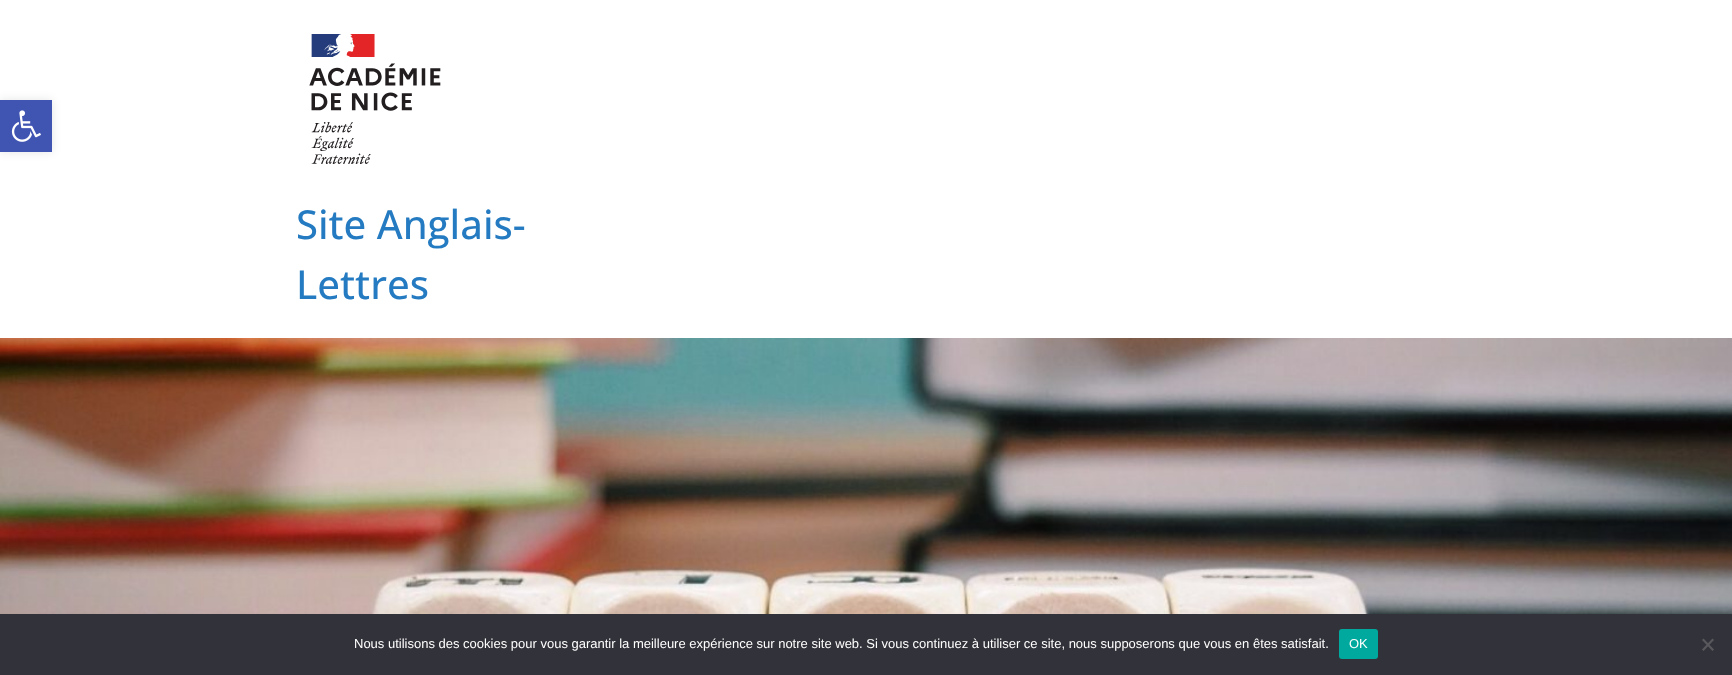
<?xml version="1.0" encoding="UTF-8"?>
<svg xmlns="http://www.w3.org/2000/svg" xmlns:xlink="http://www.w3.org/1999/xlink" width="1732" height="675">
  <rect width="100%" height="100%" fill="#ffffff" />
  <rect y="100" width="52" height="52" fill="#000000" fill-opacity="0.1" filter="blur(5px)" />
  <rect y="100" width="52" height="52" fill="#4054b2" />
  <image x="11" y="110" width="30" height="32" xlink:href="image1.png" />
  <image x="309" y="34" width="132" height="130" xlink:href="image2.png" />
  <image x="0" y="338" width="1732" height="276" xlink:href="image3.png" />
  <rect y="614" width="1732" height="61" fill="#32323a" />
  <rect x="1339" y="629" width="39" height="30" rx="3" fill="#00a99d" />
  <path d="M 1712.5 638.5 l 1.5 1.5 l -10.5 11 l -1.5 -1.5 z" fill="#59595d" />
  <path d="M 1702 640 l 1.5 -1.5 l 10.5 11 l -1.5 1.5 z" fill="#59595d" />
  <text x="296" y="239" style="font-family: Open Sans; font-size: 40px; font-weight: 500; fill: #257bc1">Site Anglais-</text>
  <text x="296" y="299" style="font-family: Open Sans; font-size: 40px; font-weight: 500; fill: #257bc1">Lettres</text>
  <text x="354" y="648" style="font-family: Liberation Sans; font-size: 13px; fill: #ffffff">Nous utilisons des cookies pour vous garantir la meilleure expérience sur notre site web. Si vous continuez à utiliser ce site, nous supposerons que vous en êtes satisfait.</text>
  <text x="1349" y="648" style="font-family: Liberation Sans; font-size: 13px; fill: #ffffff">OK</text>
</svg>
